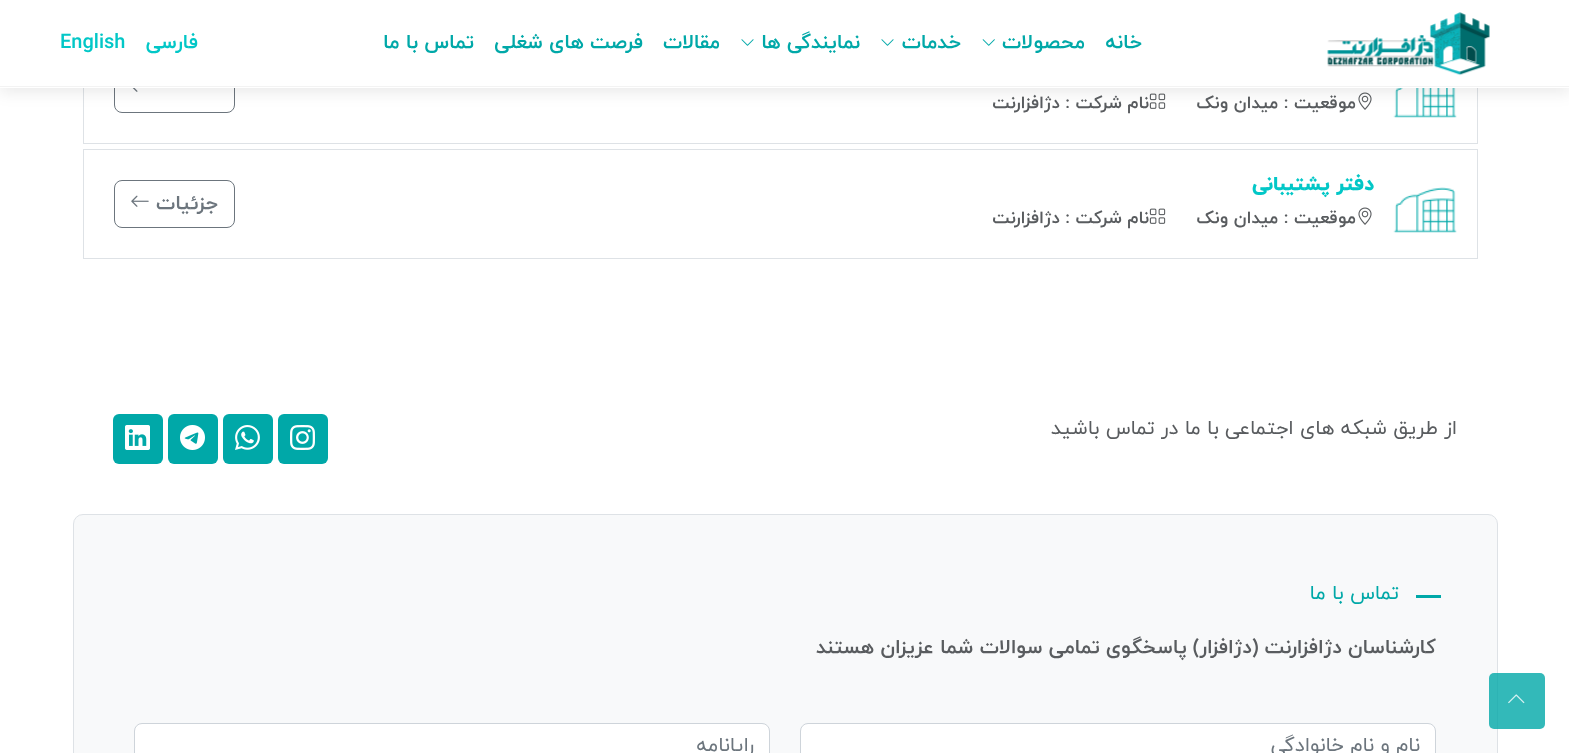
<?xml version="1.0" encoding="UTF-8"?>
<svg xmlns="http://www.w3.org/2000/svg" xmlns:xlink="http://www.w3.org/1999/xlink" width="1569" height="753">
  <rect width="100%" height="100%" fill="#ffffff" />
  <rect x="83.5" y="34.5" width="1394" height="109" fill="none" stroke="#dee2e6" />
  <image x="1393" y="88" width="64" height="30" xlink:href="image5.png" />
  <image x="1358" y="92" width="14" height="18" xlink:href="image6.png" />
  <image x="1149" y="93" width="17" height="16" xlink:href="image7.png" />
  <rect x="114.5" y="65.5" width="120" height="47" rx="7.5" fill="none" stroke="#6c757d" />
  <image x="132" y="88" width="6" height="4" xlink:href="image8.png" />
  <rect y="5" width="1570" height="88" fill="#000000" fill-opacity="0.08" filter="blur(7.5px)" />
  <rect width="1569" height="88" fill="#ffffff" />
  <rect y="86" width="1569" height="1" fill="#f3f3f3" />
  <image x="1327" y="12" width="163" height="64" xlink:href="image1.png" />
  <image x="982" y="39" width="13" height="7" xlink:href="image2.png" />
  <image x="881" y="39" width="13" height="7" xlink:href="image3.png" />
  <image x="741" y="39" width="13" height="7" xlink:href="image3.png" />
  <rect x="73.5" y="514.5" width="1424" height="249" rx="9.5" fill="#f8f9fa" stroke="#dee2e6" />
  <rect x="1489" y="673" width="56" height="56" rx="5" fill="#00a8a8" fill-opacity="0.8" />
  <image x="1508" y="694" width="17" height="10" xlink:href="image4.png" />
  <rect x="83.5" y="149.5" width="1394" height="109" fill="none" stroke="#dee2e6" />
  <image x="1393" y="187" width="64" height="46" xlink:href="image9.png" />
  <image x="1358" y="207" width="14" height="18" xlink:href="image6.png" />
  <image x="1149" y="208" width="17" height="16" xlink:href="image7.png" />
  <rect x="114.5" y="180.5" width="120" height="47" rx="7.5" fill="none" stroke="#6c757d" />
  <image x="131" y="195" width="18" height="12" xlink:href="image10.png" />
  <rect x="278" y="414" width="50" height="50" rx="6" fill="#00a8a8" />
  <image x="290" y="425" width="25" height="25" xlink:href="image11.png" />
  <rect x="223" y="414" width="50" height="50" rx="6" fill="#00a8a8" />
  <image x="235" y="425" width="25" height="25" xlink:href="image12.png" />
  <rect x="168" y="414" width="50" height="50" rx="6" fill="#00a8a8" />
  <image x="180" y="425" width="25" height="25" xlink:href="image13.png" />
  <rect x="113" y="414" width="50" height="50" rx="6" fill="#00a8a8" />
  <image x="125" y="425" width="25" height="25" xlink:href="image14.png" />
  <rect x="1416" y="595" width="25" height="3" fill="#00a8a8" />
  <rect x="801" y="724" width="634" height="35" rx="6" fill="#ffffff" />
  <rect x="800.5" y="723.5" width="635" height="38" rx="7.5" fill="none" stroke="#ced4da" />
  <rect x="135" y="724" width="634" height="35" rx="6" fill="#ffffff" />
  <rect x="134.5" y="723.5" width="635" height="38" rx="7.5" fill="none" stroke="#ced4da" />
  <text x="1142" y="48" style="font-family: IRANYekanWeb; font-size: 20px; font-weight: bold; direction: rtl; fill: #00a8a8">خانه</text>
  <text x="1085" y="48" style="font-family: IRANYekanWeb; font-size: 20px; font-weight: bold; direction: rtl; fill: #00a8a8">محصولات</text>
  <text x="961" y="48" style="font-family: IRANYekanWeb; font-size: 20px; font-weight: bold; direction: rtl; fill: #00a8a8">خدمات</text>
  <text x="860" y="48" style="font-family: IRANYekanWeb; font-size: 20px; font-weight: bold; direction: rtl; fill: #00a8a8">نمایندگی ها</text>
  <text x="720" y="48" style="font-family: IRANYekanWeb; font-size: 20px; font-weight: bold; direction: rtl; fill: #00a8a8">مقالات</text>
  <text x="643" y="48" style="font-family: IRANYekanWeb; font-size: 20px; font-weight: bold; direction: rtl; fill: #00a8a8">فرصت های شغلی</text>
  <text x="474" y="48" style="font-family: IRANYekanWeb; font-size: 20px; font-weight: bold; direction: rtl; fill: #00a8a8">تماس با ما</text>
  <text x="198" y="48" style="font-family: IRANYekanWeb; font-size: 20px; font-weight: bold; direction: rtl; fill: #02c7c7">فارسی</text>
  <text x="60" y="48" style="font-family: IRANYekanWeb; font-size: 20px; font-weight: bold; fill: #02c7c7">English</text>
  <text x="1356" y="108" style="font-family: IRANYekanWeb; font-size: 17.5px; font-weight: bold; direction: rtl; fill: #595c5f">موقعیت : میدان ونک</text>
  <text x="1149" y="108" style="font-family: IRANYekanWeb; font-size: 17.5px; font-weight: bold; direction: rtl; fill: #595c5f">نام شرکت : دژافزارنت</text>
  <text x="1374" y="190" style="font-family: IRANYekanWeb; font-size: 20px; font-weight: 800; direction: rtl; fill: #02c7c7">دفتر پشتیبانی</text>
  <text x="1356" y="223" style="font-family: IRANYekanWeb; font-size: 17.5px; font-weight: bold; direction: rtl; fill: #595c5f">موقعیت : میدان ونک</text>
  <text x="1149" y="223" style="font-family: IRANYekanWeb; font-size: 17.5px; font-weight: bold; direction: rtl; fill: #595c5f">نام شرکت : دژافزارنت</text>
  <text x="218" y="209" style="font-family: IRANYekanWeb; font-size: 20px; font-weight: bold; direction: rtl; fill: #6c757d">جزئیات</text>
  <text x="1457" y="434" style="font-family: IRANYekanWeb; font-size: 20px; direction: rtl; fill: #595c5f">از طریق شبکه های اجتماعی با ما در تماس باشید</text>
  <text x="1399" y="599" style="font-family: IRANYekanWeb; font-size: 20px; direction: rtl; fill: #00a8a8">تماس با ما</text>
  <text x="1436" y="653" style="font-family: IRANYekanWeb; font-size: 20px; font-weight: bold; direction: rtl; fill: #595c5f">کارشناسان دژافزارنت (دژافزار) پاسخگوی تمامی سوالات شما عزیزان هستند</text>
  <text x="1420" y="751" style="font-family: IRANYekanWeb; font-size: 20px; direction: rtl; fill: #6c757d">نام و نام خانوادگی</text>
  <text x="754" y="751" style="font-family: IRANYekanWeb; font-size: 20px; direction: rtl; fill: #6c757d">رایانامه</text>
</svg>
